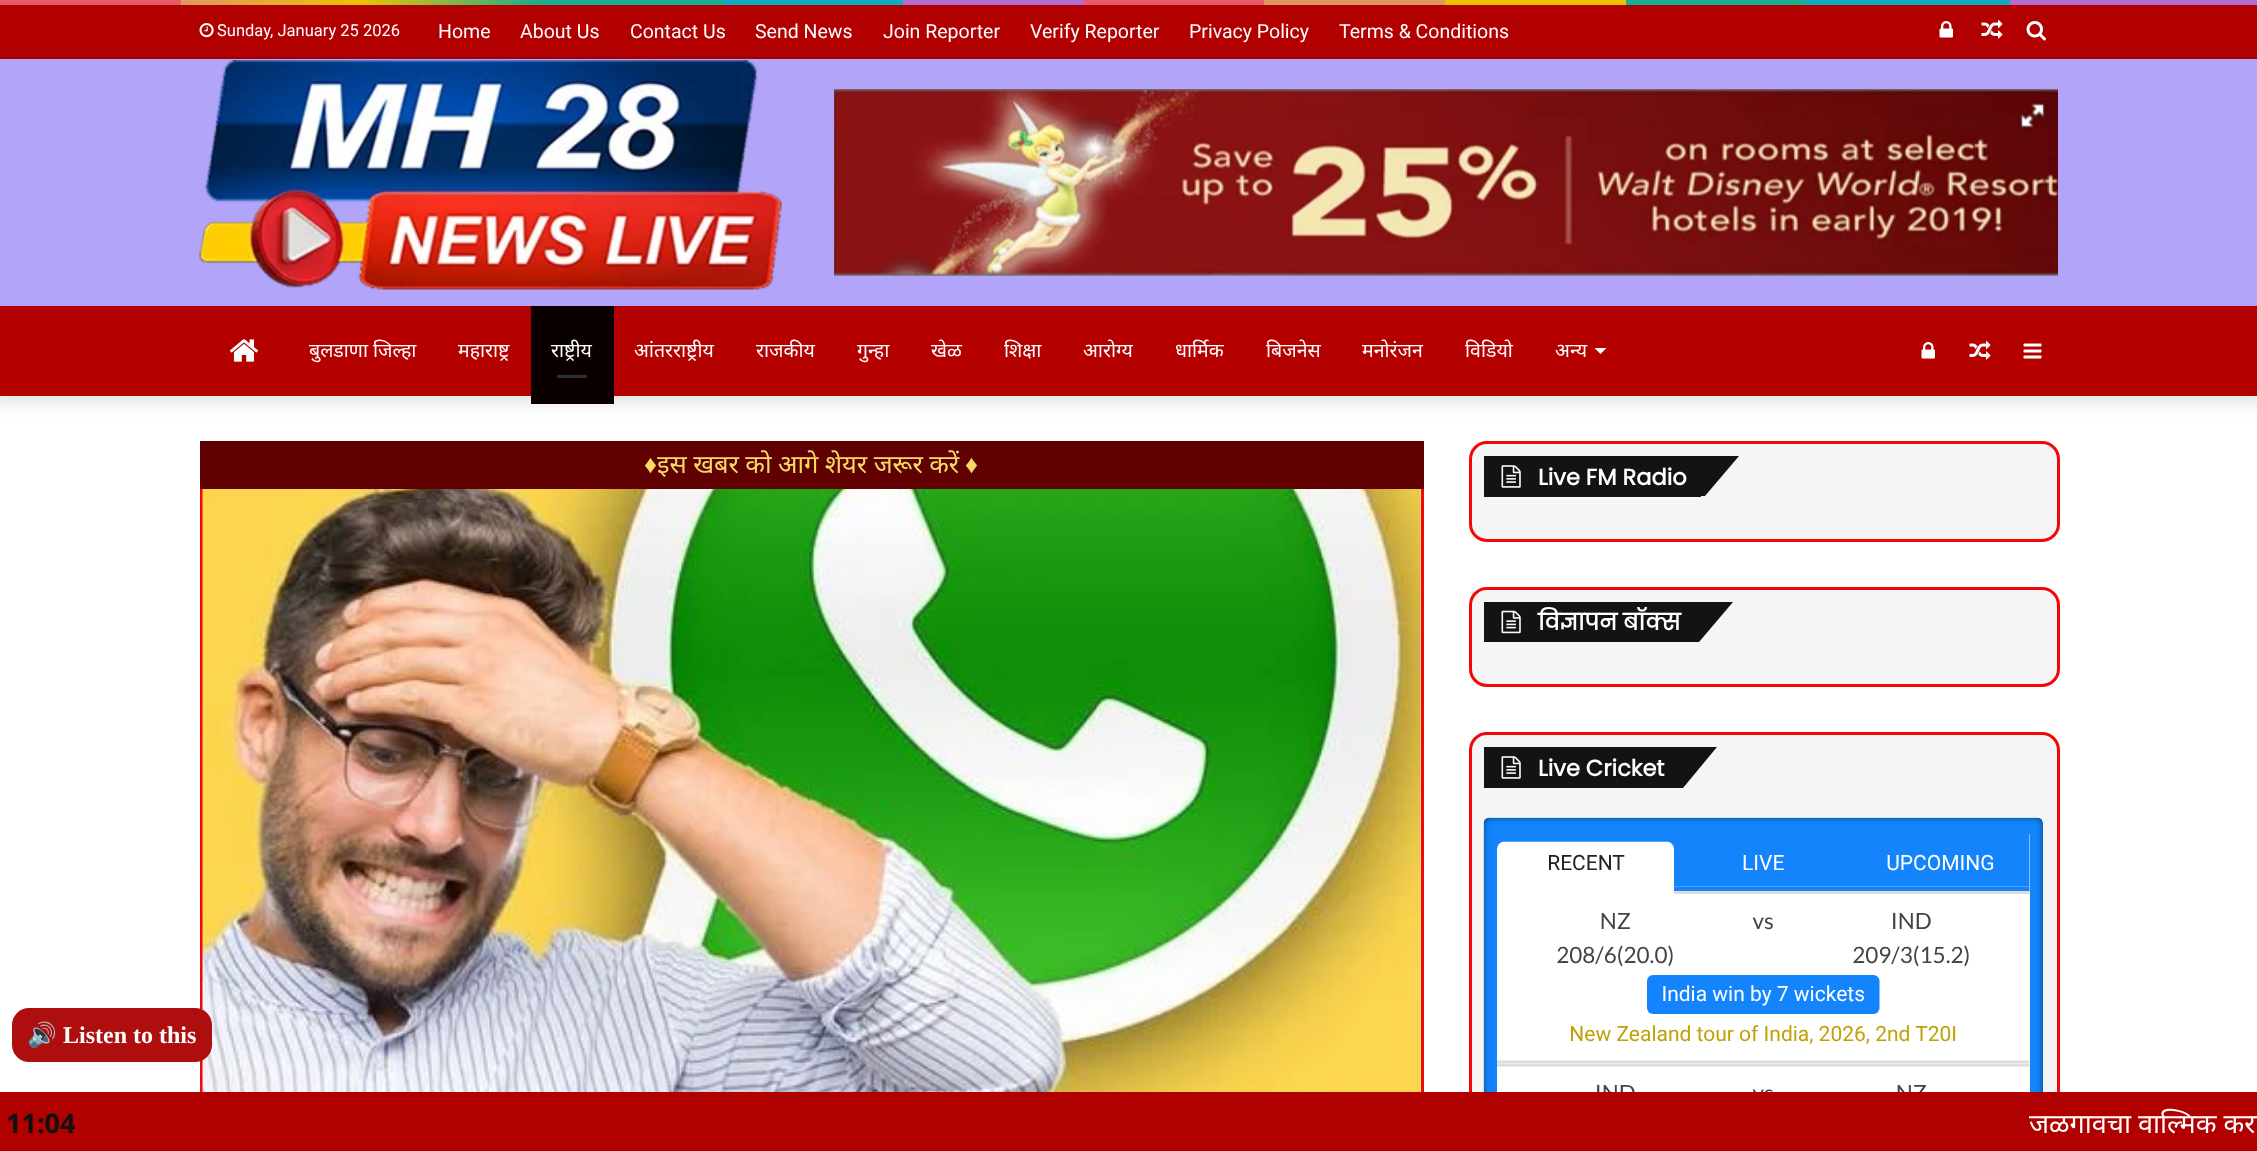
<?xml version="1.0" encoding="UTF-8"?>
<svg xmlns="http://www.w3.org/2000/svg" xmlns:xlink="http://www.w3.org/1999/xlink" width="2257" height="1151">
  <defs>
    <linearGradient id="g1" gradientUnits="userSpaceOnUse" x1="0" y1="2.3" x2="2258" y2="2.2"><stop offset="0" stop-color="#f76570" /><stop offset="0.08" stop-color="#f76570" /><stop offset="0.08" stop-color="#f3a46b" /><stop offset="0.16" stop-color="#ffd205" /><stop offset="0.24" stop-color="#1bbc9b" /><stop offset="0.32" stop-color="#1bbc9b" /><stop offset="0.32" stop-color="#14b9d5" /><stop offset="0.4" stop-color="#14b9d5" /><stop offset="0.4" stop-color="#c377e4" /><stop offset="0.48" stop-color="#c377e4" /><stop offset="0.48" stop-color="#f76570" /><stop offset="0.56" stop-color="#f76570" /><stop offset="0.56" stop-color="#f3a46b" /><stop offset="0.64" stop-color="#f3a46b" /><stop offset="0.64" stop-color="#ffd205" /><stop offset="0.72" stop-color="#ffd205" /><stop offset="0.72" stop-color="#1bbc9b" /><stop offset="0.8" stop-color="#1bbc9b" /><stop offset="0.8" stop-color="#14b9d5" /><stop offset="0.89" stop-color="#14b9d5" /><stop offset="0.89" stop-color="#c377e4" /><stop offset="1" stop-color="#c377e4" /></linearGradient>
  </defs>
  <rect width="100%" height="100%" fill="#ffffff" />
  <rect width="2257" height="5" fill="url(#g1)" />
  <rect x="-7" y="-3" width="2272" height="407" fill="#000000" fill-opacity="0.1" filter="blur(7.5px)" />
  <rect y="59" width="2257" height="247" fill="#b1a4f9" />
  <rect y="5" width="2257" height="52" fill="#b20000" />
  <rect y="57" width="2257" height="2" fill="#a00000" />
  <image x="199" y="23" width="15" height="15" xlink:href="image1.png" />
  <image x="1939" y="21" width="14" height="17" xlink:href="image2.png" />
  <image x="1981" y="19" width="22" height="20" xlink:href="image3.png" />
  <image x="2026" y="21" width="20" height="20" xlink:href="image4.png" />
  <image x="199" y="60" width="583" height="230" xlink:href="image5.png" />
  <image x="834" y="89" width="1224" height="187" xlink:href="image6.png" />
  <image x="2017" y="100" width="31" height="31" xlink:href="image7.png" />
  <rect y="306" width="2257" height="90" fill="#b50000" />
  <image x="230" y="339" width="28" height="23" xlink:href="image8.png" />
  <rect x="531" y="306" width="83" height="98" fill="#0a0000" />
  <rect x="557" y="375" width="30" height="3" fill="#2c2f34" />
  <path d="M 1594.5 348 h 12 l -6 6 z" fill="#ffffff" />
  <image x="1921" y="342" width="14" height="17" xlink:href="image9.png" />
  <image x="1969" y="340" width="22" height="20" xlink:href="image10.png" />
  <image x="2023" y="343" width="19" height="16" xlink:href="image11.png" />
  <rect x="1420" y="489" width="1" height="603" fill="#f5f5f5" />
  <rect x="201.5" y="468.5" width="1221" height="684" fill="none" stroke="#f30707" stroke-width="3" />
  <rect x="200" y="441" width="1224" height="48" fill="#610000" />
  <image x="202" y="489" width="1219" height="603" xlink:href="image12.png" />
  <rect x="12" y="1008" width="200" height="54" rx="17" fill="#af0e0e" />
  <rect x="1470.5" y="442.5" width="588" height="98" rx="16.5" fill="#f5f5f5" stroke="#f30707" stroke-width="3" />
  <rect x="1484" y="456" width="217" height="41" fill="#131313" />
  <path d="M 1587 456 h 152 l -34 40 h -152 z" fill="#131313" />
  <image x="1501" y="465" width="20" height="23" xlink:href="image13.png" />
  <rect x="1470.5" y="588.5" width="588" height="97" rx="16.5" fill="#f5f5f5" stroke="#f30707" stroke-width="3" />
  <rect x="1484" y="602" width="101" height="40" fill="#131313" />
  <path d="M 1585 602 h 148 l -34 40 h -148 z" fill="#131313" />
  <image x="1501" y="610" width="20" height="24" xlink:href="image14.png" />
  <rect x="1470.5" y="733.5" width="588" height="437" rx="16.5" fill="#f5f5f5" stroke="#f30707" stroke-width="3" />
  <rect x="1484" y="747" width="96" height="41" fill="#131313" />
  <path d="M 1580 747 h 137 l -34 41 h -137 z" fill="#131313" />
  <image x="1501" y="756" width="20" height="23" xlink:href="image13.png" />
  <image x="1483" y="817" width="560" height="275" xlink:href="image15.png" />
  <rect y="1092" width="2257" height="59" fill="#b10000" />
  <text x="217" y="36" style="font-family: Roboto; font-size: 16.5px; fill: #ffffff">Sunday, January 25 2026</text>
  <text x="438" y="38" style="font-family: Roboto; font-size: 19.5px; fill: #ffffff">Home</text>
  <text x="520" y="38" style="font-family: Roboto; font-size: 19.5px; fill: #ffffff">About Us</text>
  <text x="630" y="38" style="font-family: Roboto; font-size: 19.5px; fill: #ffffff">Contact Us</text>
  <text x="755" y="38" style="font-family: Roboto; font-size: 19.5px; fill: #ffffff">Send News</text>
  <text x="883" y="38" style="font-family: Roboto; font-size: 19.5px; fill: #ffffff">Join Reporter</text>
  <text x="1030" y="38" style="font-family: Roboto; font-size: 19.5px; fill: #ffffff">Verify Reporter</text>
  <text x="1189" y="38" style="font-family: Roboto; font-size: 19.5px; fill: #ffffff">Privacy Policy</text>
  <text x="1339" y="38" style="font-family: Roboto; font-size: 19.5px; fill: #ffffff">Terms &amp; Conditions</text>
  <text x="309" y="357" style="font-family: Noto Sans; font-size: 19.5px; fill: #ffffff">बुलडाणा जिल्हा</text>
  <text x="458" y="357" style="font-family: Noto Sans; font-size: 19.5px; fill: #ffffff">महाराष्ट्र</text>
  <text x="551" y="357" style="font-family: Noto Sans; font-size: 19.5px; fill: #ffffff">राष्ट्रीय</text>
  <text x="634" y="357" style="font-family: Noto Sans; font-size: 19.5px; fill: #ffffff">आंतरराष्ट्रीय</text>
  <text x="756" y="357" style="font-family: Noto Sans; font-size: 19.5px; fill: #ffffff">राजकीय</text>
  <text x="857" y="357" style="font-family: Noto Sans; font-size: 19.5px; fill: #ffffff">गुन्हा</text>
  <text x="931" y="357" style="font-family: Noto Sans; font-size: 19.5px; fill: #ffffff">खेळ</text>
  <text x="1004" y="357" style="font-family: Noto Sans; font-size: 19.5px; fill: #ffffff">शिक्षा</text>
  <text x="1083" y="357" style="font-family: Noto Sans; font-size: 19.5px; fill: #ffffff">आरोग्य</text>
  <text x="1175" y="357" style="font-family: Noto Sans; font-size: 19.5px; fill: #ffffff">धार्मिक</text>
  <text x="1266" y="357" style="font-family: Noto Sans; font-size: 19.5px; fill: #ffffff">बिजनेस</text>
  <text x="1362" y="357" style="font-family: Noto Sans; font-size: 19.5px; fill: #ffffff">मनोरंजन</text>
  <text x="1465" y="357" style="font-family: Noto Sans; font-size: 19.5px; fill: #ffffff">विडियो</text>
  <text x="1555" y="357" style="font-family: Noto Sans; font-size: 19.5px; fill: #ffffff">अन्य</text>
  <text x="644" y="473" style="font-family: Liberation Sans; font-size: 25.5px; font-weight: bold; fill: #f7da64">♦</text>
  <text x="657" y="473" word-spacing="-0.25" style="font-family: Noto Sans; font-size: 25.5px; fill: #f7da64">इस खबर को आगे शेयर जरूर करें</text>
  <text x="965" y="473" style="font-family: Liberation Sans; font-size: 25.5px; font-weight: bold; fill: #f7da64">♦</text>
  <text x="27" y="1043" style="font-family: Noto Color Emoji; font-size: 24px; font-weight: bold; fill: #ffffff">🔊</text>
  <text x="63" y="1043" style="font-family: Liberation Serif; font-size: 24px; font-weight: bold; fill: #ffffff">Listen to this</text>
  <text x="1538" y="485" style="font-family: Poppins; font-size: 22.5px; font-weight: bold; fill: #ffffff">Live FM Radio</text>
  <text x="1538" y="630" style="font-family: Poppins; font-size: 22.5px; font-weight: bold; fill: #ffffff">विज्ञापन बॉक्स</text>
  <text x="1538" y="776" style="font-family: Poppins; font-size: 22.5px; font-weight: bold; fill: #ffffff">Live Cricket</text>
  <text x="6" y="1133" style="font-family: Open Sans; font-size: 27px; font-weight: bold; fill: #111111">11:04</text>
  <text x="2029" y="1133" style="font-family: Noto Sans; font-size: 27px; fill: #ffffff">जळगावचा वाल्मिक करा</text>
</svg>
